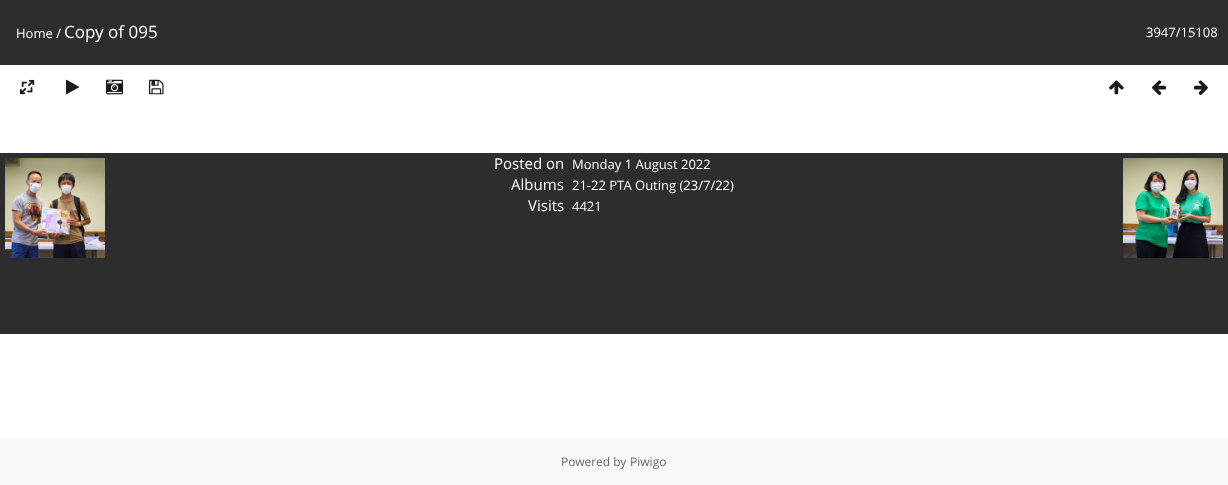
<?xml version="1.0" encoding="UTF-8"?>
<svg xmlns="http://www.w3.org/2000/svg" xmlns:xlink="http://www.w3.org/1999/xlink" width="1228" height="485">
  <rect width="100%" height="100%" fill="#ffffff" />
  <rect width="1228" height="65" fill="#2d2d2d" />
  <image x="20" y="79" width="15" height="16" xlink:href="image1.png" />
  <image x="106" y="79" width="17" height="16" xlink:href="image2.png" />
  <rect y="153" width="1228" height="181" fill="#2d2d2d" />
  <image x="5" y="158" width="100" height="100" xlink:href="image3.png" />
  <image x="1123" y="158" width="100" height="100" xlink:href="image4.png" />
  <rect y="438" width="1228" height="47" fill="#f9f9f9" />
  <text x="16" y="38" style="font-family: Open Sans; font-size: 13px; fill: #ffffff">Home /</text>
  <text x="64" y="38" style="font-family: Open Sans; font-size: 17px; fill: #ffffff">Copy of 095</text>
  <text x="1146" y="37" style="font-family: Open Sans; font-size: 13px; fill: #ffffff">3947/15108</text>
  <text x="66" y="93" style="font-family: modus; font-size: 17px; fill: #1a1a1a">▶</text>
  <text x="149" y="93" style="font-family: modus; font-size: 17px; fill: #1a1a1a">💾</text>
  <text x="1109" y="93" style="font-family: modus; font-size: 17px; fill: #1a1a1a">↑</text>
  <text x="1152" y="93" style="font-family: modus; font-size: 17px; fill: #1a1a1a">←</text>
  <text x="1194" y="93" style="font-family: modus; font-size: 17px; fill: #1a1a1a">→</text>
  <text x="494" y="169" style="font-family: Open Sans; font-size: 15px; fill: #ffffff">Posted on</text>
  <text x="572" y="169" style="font-family: Open Sans; font-size: 13px; fill: #ffffff">Monday 1 August 2022</text>
  <text x="511" y="190" style="font-family: Open Sans; font-size: 15px; fill: #ffffff">Albums</text>
  <text x="572" y="190" style="font-family: Open Sans; font-size: 13px; fill: #ffffff">21-22 PTA Outing (23/7/22)</text>
  <text x="528" y="211" style="font-family: Open Sans; font-size: 15px; fill: #ffffff">Visits</text>
  <text x="572" y="211" style="font-family: Open Sans; font-size: 13px; fill: #ffffff">4421</text>
  <text x="561" y="466" style="font-family: Open Sans; font-size: 12px; fill: #666666">Powered by</text>
  <text x="630" y="466" style="font-family: Open Sans; font-size: 12px; fill: #666666">Piwigo</text>
</svg>
